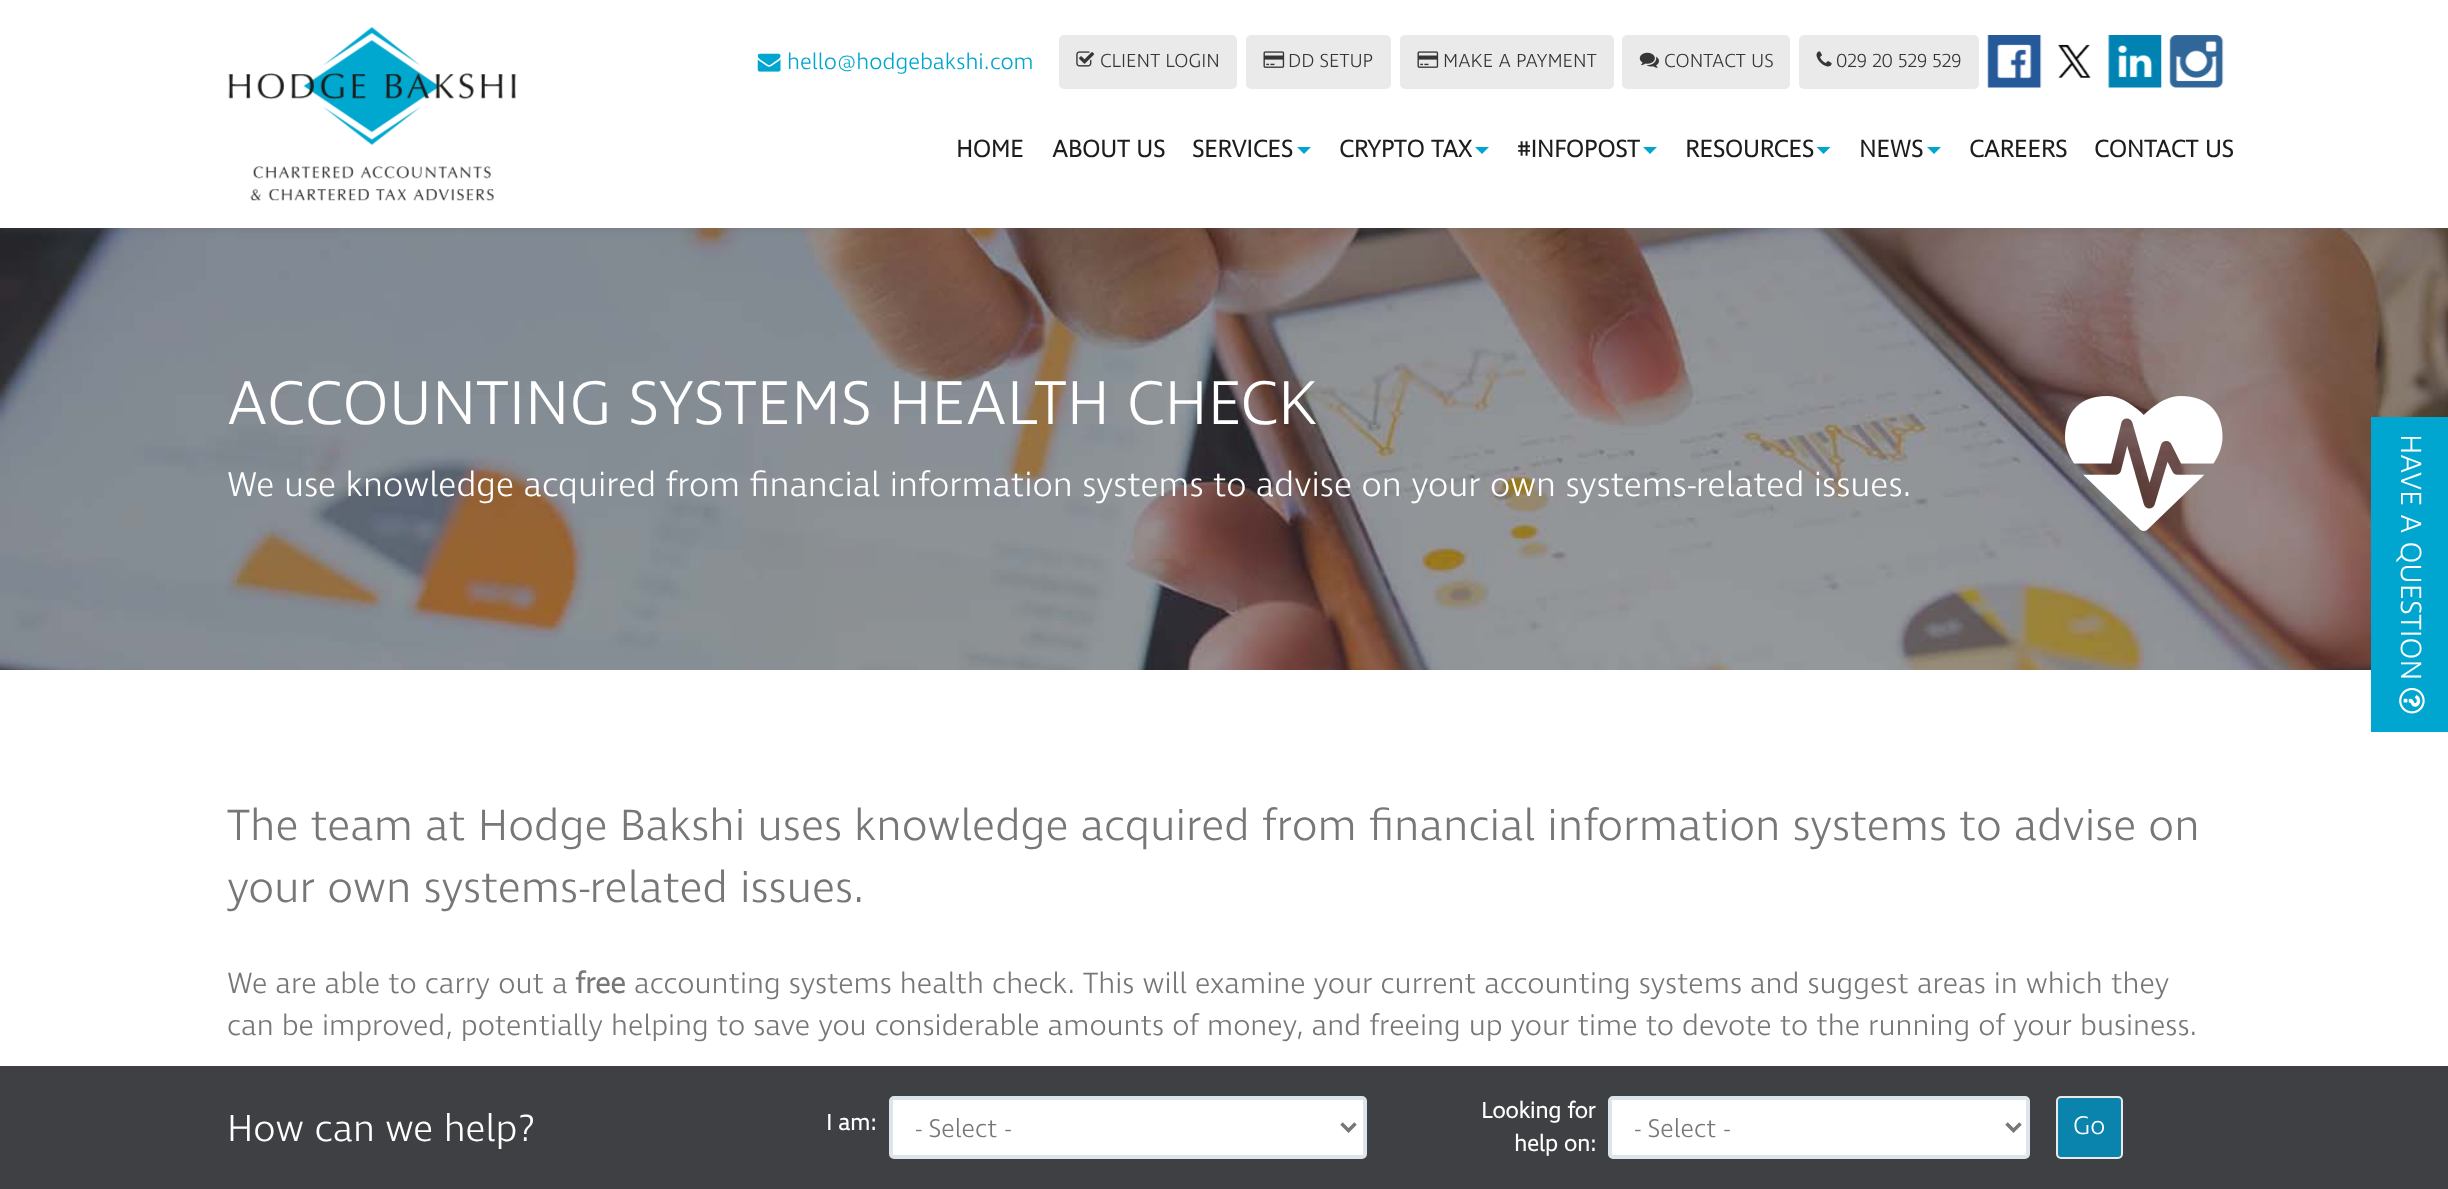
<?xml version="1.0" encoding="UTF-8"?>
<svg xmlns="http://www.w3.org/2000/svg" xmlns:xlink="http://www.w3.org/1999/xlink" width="2448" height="1189">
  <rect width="100%" height="100%" fill="#ffffff" />
  <image x="0" y="228" width="2448" height="442" xlink:href="image11.png" />
  <rect y="2" width="2448" height="227" fill="#646464" fill-opacity="0.3" filter="blur(4.5px)" />
  <rect width="2448" height="228" fill="#ffffff" />
  <image x="228" y="27" width="288" height="174" xlink:href="image1.png" />
  <image x="757" y="53" width="24" height="19" xlink:href="image2.png" />
  <rect x="1060" y="36" width="176" height="52" rx="4" fill="#eaeaea" stroke="#eaeaea" stroke-width="2" />
  <image x="1076" y="51" width="19" height="16" xlink:href="image3.png" />
  <rect x="1247" y="36" width="143" height="52" rx="4" fill="#eaeaea" stroke="#eaeaea" stroke-width="2" />
  <image x="1263" y="51" width="22" height="17" xlink:href="image4.png" />
  <rect x="1401" y="36" width="212" height="52" rx="4" fill="#eaeaea" stroke="#eaeaea" stroke-width="2" />
  <image x="1417" y="51" width="22" height="17" xlink:href="image4.png" />
  <rect x="1623" y="36" width="166" height="52" rx="4" fill="#eaeaea" stroke="#eaeaea" stroke-width="2" />
  <image x="1639" y="52" width="20" height="16" xlink:href="image5.png" />
  <rect x="1800" y="36" width="178" height="52" rx="4" fill="#eaeaea" stroke="#eaeaea" stroke-width="2" />
  <image x="1816" y="51" width="16" height="16" xlink:href="image6.png" />
  <image x="1987" y="35" width="55" height="53" xlink:href="image7.png" />
  <image x="2058" y="44" width="33" height="34" xlink:href="image8.png" />
  <image x="2108" y="35" width="54" height="53" xlink:href="image9.png" />
  <image x="2169" y="35" width="55" height="53" xlink:href="image10.png" />
  <path d="M 1297 147 h 14 l -7 7 z" fill="#00a6cf" />
  <path d="M 1475 147 h 14 l -7 7 z" fill="#00a6cf" />
  <path d="M 1643 147 h 14 l -7 7 z" fill="#00a6cf" />
  <path d="M 1816.5 147 h 14 l -7 7 z" fill="#00a6cf" />
  <path d="M 1927 147 h 14 l -7 7 z" fill="#00a6cf" />
  <image x="2065" y="396" width="158" height="135" xlink:href="image12.png" />
  <rect x="2371" y="417" width="77" height="315" fill="#00a6cf" />
  <image x="2399" y="687" width="26" height="27" xlink:href="image13.png" />
  <rect y="1066" width="2448" height="123" fill="#3f4043" />
  <rect x="891" y="1098" width="474" height="59" rx="3" fill="#ffffff" stroke="#dce4ec" stroke-width="4" />
  <path d="M 1341.5 1123.5 l 7 7 l 7 -7" fill="none" stroke="#787777" stroke-width="3.5" />
  <rect x="1610" y="1098" width="418" height="59" rx="3" fill="#ffffff" stroke="#dce4ec" stroke-width="4" />
  <path d="M 2006.5 1123.5 l 7 7 l 7 -7" fill="none" stroke="#787777" stroke-width="3.5" />
  <rect x="2057" y="1097" width="65" height="61" rx="4" fill="#0a84ad" stroke="#eaeaea" stroke-width="2" />
  <text x="787" y="69" style="font-family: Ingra; font-size: 22.75px; font-weight: 300; fill: #00a6cf">hello@hodgebakshi.com</text>
  <text x="1100" y="67" style="font-family: Ingra; font-size: 19.25px; font-weight: 300; fill: #343637">CLIENT LOGIN</text>
  <text x="1288" y="67" style="font-family: Ingra; font-size: 19.25px; font-weight: 300; fill: #343637">DD SETUP</text>
  <text x="1443" y="67" style="font-family: Ingra; font-size: 19.25px; font-weight: 300; fill: #343637">MAKE A PAYMENT</text>
  <text x="1664" y="67" style="font-family: Ingra; font-size: 19.25px; font-weight: 300; fill: #343637">CONTACT US</text>
  <text x="1836" y="67" style="font-family: Ingra; font-size: 19.25px; font-weight: 300; fill: #343637">029 20 529 529</text>
  <text x="956" y="157" style="font-family: Ingra; font-size: 24.5px; font-weight: bold; fill: #1d1d1b">HOME</text>
  <text x="1052" y="157" style="font-family: Ingra; font-size: 24.5px; font-weight: bold; fill: #1d1d1b">ABOUT US</text>
  <text x="1192" y="157" style="font-family: Ingra; font-size: 24.5px; font-weight: bold; fill: #1d1d1b">SERVICES</text>
  <text x="1339" y="157" style="font-family: Ingra; font-size: 24.5px; font-weight: bold; fill: #1d1d1b">CRYPTO TAX</text>
  <text x="1517" y="157" style="font-family: Ingra; font-size: 24.5px; font-weight: bold; fill: #1d1d1b">#INFOPOST</text>
  <text x="1685" y="157" style="font-family: Ingra; font-size: 24.5px; font-weight: bold; fill: #1d1d1b">RESOURCES</text>
  <text x="1859" y="157" style="font-family: Ingra; font-size: 24.5px; font-weight: bold; fill: #1d1d1b">NEWS</text>
  <text x="1969" y="157" style="font-family: Ingra; font-size: 24.5px; font-weight: bold; fill: #1d1d1b">CAREERS</text>
  <text x="2094" y="157" style="font-family: Ingra; font-size: 24.5px; font-weight: bold; fill: #1d1d1b">CONTACT US</text>
  <text x="227" y="424" style="font-family: Ingra; font-size: 63px; font-weight: 300; fill: #ffffff">ACCOUNTING SYSTEMS HEALTH CHECK</text>
  <text x="227" y="496" style="font-family: Ingra; font-size: 35px; font-weight: 300; fill: #ffffff">We use knowledge acquired from financial information systems to advise on your own systems-related issues.</text>
  <text x="227" y="840" style="font-family: Ingra; font-size: 44.6px; font-weight: 300; fill: #787777">The team at Hodge Bakshi uses knowledge acquired from financial information systems to advise on</text>
  <text x="227" y="902" style="font-family: Ingra; font-size: 44.6px; font-weight: 300; fill: #787777">your own systems-related issues.</text>
  <text x="227" y="993" style="font-family: Ingra; font-size: 29.75px; font-weight: 300; fill: #787777">We are able to carry out a</text>
  <text x="575" y="993" style="font-family: Ingra; font-size: 29.75px; font-weight: bold; fill: #787777">free</text>
  <text x="634" y="993" style="font-family: Ingra; font-size: 29.75px; font-weight: 300; fill: #787777">accounting systems health check. This will examine your current accounting systems and suggest areas in which they</text>
  <text x="227" y="1035" style="font-family: Ingra; font-size: 29.75px; font-weight: 300; fill: #787777">can be improved, potentially helping to save you considerable amounts of money, and freeing up your time to devote to the running of your business.</text>
  <text x="2401" y="434" transform="rotate(90 2401 434)" style="font-family: Ingra; font-size: 29.75px; font-weight: 300; fill: #ffffff">HAVE A QUESTION</text>
  <text x="227" y="1141" style="font-family: Ingra; font-size: 38.5px; font-weight: 300; fill: #ffffff">How can we help?</text>
  <text x="826" y="1130" style="font-family: Ingra; font-size: 22.75px; font-weight: bold; fill: #ffffff">I am:</text>
  <text x="915" y="1137" style="font-family: Ingra; font-size: 26px; font-weight: 300; fill: #787777">- Select -</text>
  <text x="1481" y="1118" style="font-family: Ingra; font-size: 22.75px; font-weight: bold; fill: #ffffff">Looking for</text>
  <text x="1514" y="1151" style="font-family: Ingra; font-size: 22.75px; font-weight: bold; fill: #ffffff">help on:</text>
  <text x="1634" y="1137" style="font-family: Ingra; font-size: 26px; font-weight: 300; fill: #787777">- Select -</text>
  <text x="2073" y="1134" style="font-family: Ingra; font-size: 26px; font-weight: 300; fill: #ffffff">Go</text>
</svg>
